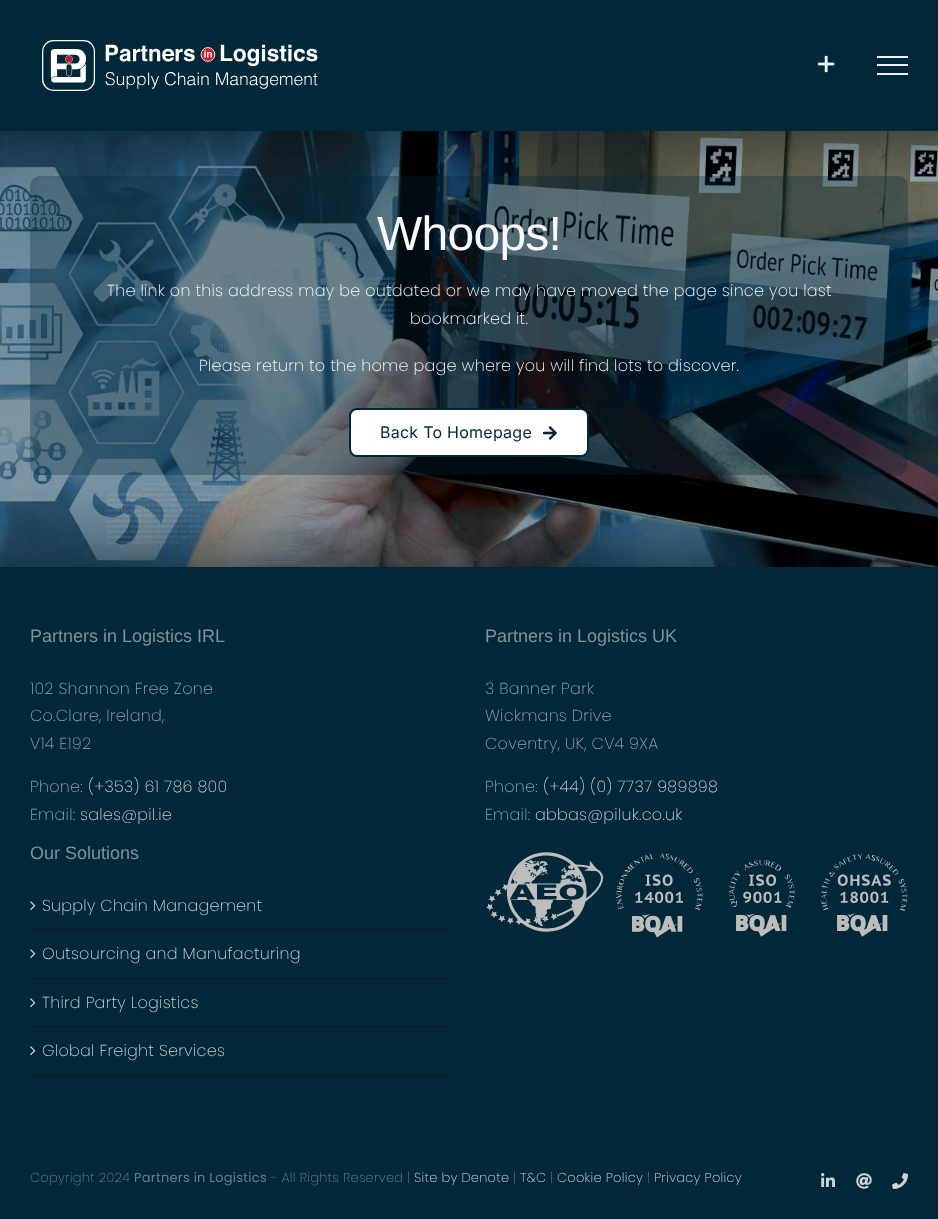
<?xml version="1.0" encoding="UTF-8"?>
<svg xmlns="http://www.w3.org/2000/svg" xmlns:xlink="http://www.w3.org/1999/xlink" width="938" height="1219">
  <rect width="100%" height="100%" fill="#ffffff" />
  <rect width="938" height="131" fill="#002838" />
  <image x="42" y="40" width="276" height="51" xlink:href="image1.png" />
  <image x="818" y="55" width="17" height="18" xlink:href="image2.png" />
  <rect x="877" y="56" width="31" height="2" fill="#f2f3f5" />
  <rect x="877" y="64" width="31" height="2" fill="#f2f3f5" />
  <rect x="877" y="73" width="31" height="2" fill="#f2f3f5" />
  <image x="0" y="131" width="938" height="436" xlink:href="image3.png" />
  <rect x="30" y="176" width="878" height="299" rx="10" fill="#002838" fill-opacity="0.31" />
  <rect x="350" y="409" width="238" height="47" rx="7" fill="#ffffff" stroke="#002838" stroke-width="2" />
  <image x="543" y="426" width="14" height="14" xlink:href="image4.png" />
  <rect y="567" width="938" height="652" fill="#002838" />
  <rect x="30" y="929" width="423" height="1" fill="#141617" />
  <image x="30" y="901" width="6" height="10" xlink:href="image5.png" />
  <rect x="30" y="978" width="423" height="1" fill="#141617" />
  <image x="30" y="949" width="6" height="10" xlink:href="image5.png" />
  <rect x="30" y="1026" width="423" height="1" fill="#141617" />
  <image x="30" y="998" width="6" height="10" xlink:href="image5.png" />
  <rect x="30" y="1075" width="423" height="1" fill="#141617" />
  <image x="30" y="1046" width="6" height="10" xlink:href="image5.png" />
  <image x="486" y="852" width="422" height="86" xlink:href="image6.png" />
  <image x="821" y="1173" width="14" height="14" xlink:href="image7.png" />
  <image x="856" y="1173" width="16" height="16" xlink:href="image8.png" />
  <image x="892" y="1173" width="16" height="16" xlink:href="image9.png" />
  <text x="377" y="250" style="font-family: Liberation Sans; font-size: 48px; letter-spacing: -0.75px; fill: #f9f9fb">Whoops!</text>
  <text x="107" y="296" style="font-family: Poppins; font-size: 16px; font-weight: 200; letter-spacing: 0.25px; fill: #ffffff">The link on this address may be outdated or we may have moved the page since you last</text>
  <text x="410" y="324" style="font-family: Poppins; font-size: 16px; font-weight: 200; letter-spacing: 0.25px; fill: #ffffff">bookmarked it.</text>
  <text x="199" y="371" style="font-family: Poppins; font-size: 16px; font-weight: 200; letter-spacing: 0.25px; fill: #ffffff">Please return to the home page where you will find lots to discover.</text>
  <text x="380" y="438" style="font-family: Inter; font-size: 16px; letter-spacing: 0.25px; fill: #002838">Back To Homepage</text>
  <text x="30" y="642" style="font-family: Liberation Sans; font-size: 18px; fill: #7f9199">Partners in Logistics IRL</text>
  <text x="30" y="694" style="font-family: Poppins; font-size: 16px; font-weight: 200; letter-spacing: 0.25px; fill: #95a5ad">102 Shannon Free Zone</text>
  <text x="30" y="721" style="font-family: Poppins; font-size: 16px; font-weight: 200; letter-spacing: 0.25px; fill: #95a5ad">Co.Clare, Ireland,</text>
  <text x="30" y="749" style="font-family: Poppins; font-size: 16px; font-weight: 200; letter-spacing: 0.25px; fill: #95a5ad">V14 E192</text>
  <text x="30" y="792" style="font-family: Poppins; font-size: 16px; font-weight: 200; letter-spacing: 0.25px; fill: #95a5ad">Phone:</text>
  <text x="88" y="792" style="font-family: Poppins; font-size: 16px; font-weight: 200; letter-spacing: 0.25px; fill: #ccd4d7">(+353) 61 786 800</text>
  <text x="30" y="820" style="font-family: Poppins; font-size: 16px; font-weight: 200; letter-spacing: 0.25px; fill: #95a5ad">Email:</text>
  <text x="80" y="820" style="font-family: Poppins; font-size: 16px; font-weight: 200; letter-spacing: 0.25px; fill: #ccd4d7">sales@pil.ie</text>
  <text x="485" y="642" style="font-family: Liberation Sans; font-size: 18px; fill: #7f9199">Partners in Logistics UK</text>
  <text x="485" y="694" style="font-family: Poppins; font-size: 16px; font-weight: 200; letter-spacing: 0.25px; fill: #95a5ad">3 Banner Park</text>
  <text x="485" y="721" style="font-family: Poppins; font-size: 16px; font-weight: 200; letter-spacing: 0.25px; fill: #95a5ad">Wickmans Drive</text>
  <text x="485" y="749" style="font-family: Poppins; font-size: 16px; font-weight: 200; letter-spacing: 0.25px; fill: #95a5ad">Coventry, UK, CV4 9XA</text>
  <text x="485" y="792" style="font-family: Poppins; font-size: 16px; font-weight: 200; letter-spacing: 0.25px; fill: #95a5ad">Phone:</text>
  <text x="543" y="792" style="font-family: Poppins; font-size: 16px; font-weight: 200; letter-spacing: 0.25px; fill: #ccd4d7">(+44) (0) 7737 989898</text>
  <text x="485" y="820" style="font-family: Poppins; font-size: 16px; font-weight: 200; letter-spacing: 0.25px; fill: #95a5ad">Email:</text>
  <text x="535" y="820" style="font-family: Poppins; font-size: 16px; font-weight: 200; letter-spacing: 0.25px; fill: #ccd4d7">abbas@piluk.co.uk</text>
  <text x="30" y="859" style="font-family: Liberation Sans; font-size: 18px; fill: #7f9199">Our Solutions</text>
  <text x="42" y="911" style="font-family: Poppins; font-size: 16px; font-weight: 200; letter-spacing: 0.25px; fill: #ccd4d7">Supply Chain Management</text>
  <text x="42" y="959" style="font-family: Poppins; font-size: 16px; font-weight: 200; letter-spacing: 0.25px; fill: #ccd4d7">Outsourcing and Manufacturing</text>
  <text x="42" y="1008" style="font-family: Poppins; font-size: 16px; font-weight: 200; letter-spacing: 0.25px; fill: #ccd4d7">Third Party Logistics</text>
  <text x="42" y="1056" style="font-family: Poppins; font-size: 16px; font-weight: 200; letter-spacing: 0.25px; fill: #ccd4d7">Global Freight Services</text>
  <text x="30" y="1182" style="font-family: Poppins; font-size: 13px; font-weight: 200; letter-spacing: 0.25px; fill: #667e88">Copyright 2024</text>
  <text x="134" y="1182" style="font-family: Poppins; font-size: 13px; letter-spacing: 0.25px; fill: #667e88">Partners in Logistics</text>
  <text x="271" y="1182" style="font-family: Poppins; font-size: 13px; font-weight: 200; letter-spacing: 0.25px; fill: #667e88">- All Rights Reserved |</text>
  <text x="414" y="1182" style="font-family: Poppins; font-size: 13px; font-weight: 200; letter-spacing: 0.25px; fill: #ccd4d7">Site by Denote</text>
  <text x="513" y="1182" style="font-family: Poppins; font-size: 13px; font-weight: 200; letter-spacing: 0.25px; fill: #667e88">|</text>
  <text x="520" y="1182" style="font-family: Poppins; font-size: 13px; font-weight: 200; letter-spacing: 0.25px; fill: #ccd4d7">T&amp;C</text>
  <text x="550" y="1182" style="font-family: Poppins; font-size: 13px; font-weight: 200; letter-spacing: 0.25px; fill: #667e88">|</text>
  <text x="557" y="1182" style="font-family: Poppins; font-size: 13px; font-weight: 200; letter-spacing: 0.25px; fill: #ccd4d7">Cookie Policy</text>
  <text x="647" y="1182" style="font-family: Poppins; font-size: 13px; font-weight: 200; letter-spacing: 0.25px; fill: #667e88">|</text>
  <text x="654" y="1182" style="font-family: Poppins; font-size: 13px; font-weight: 200; letter-spacing: 0.25px; fill: #ccd4d7">Privacy Policy</text>
</svg>
